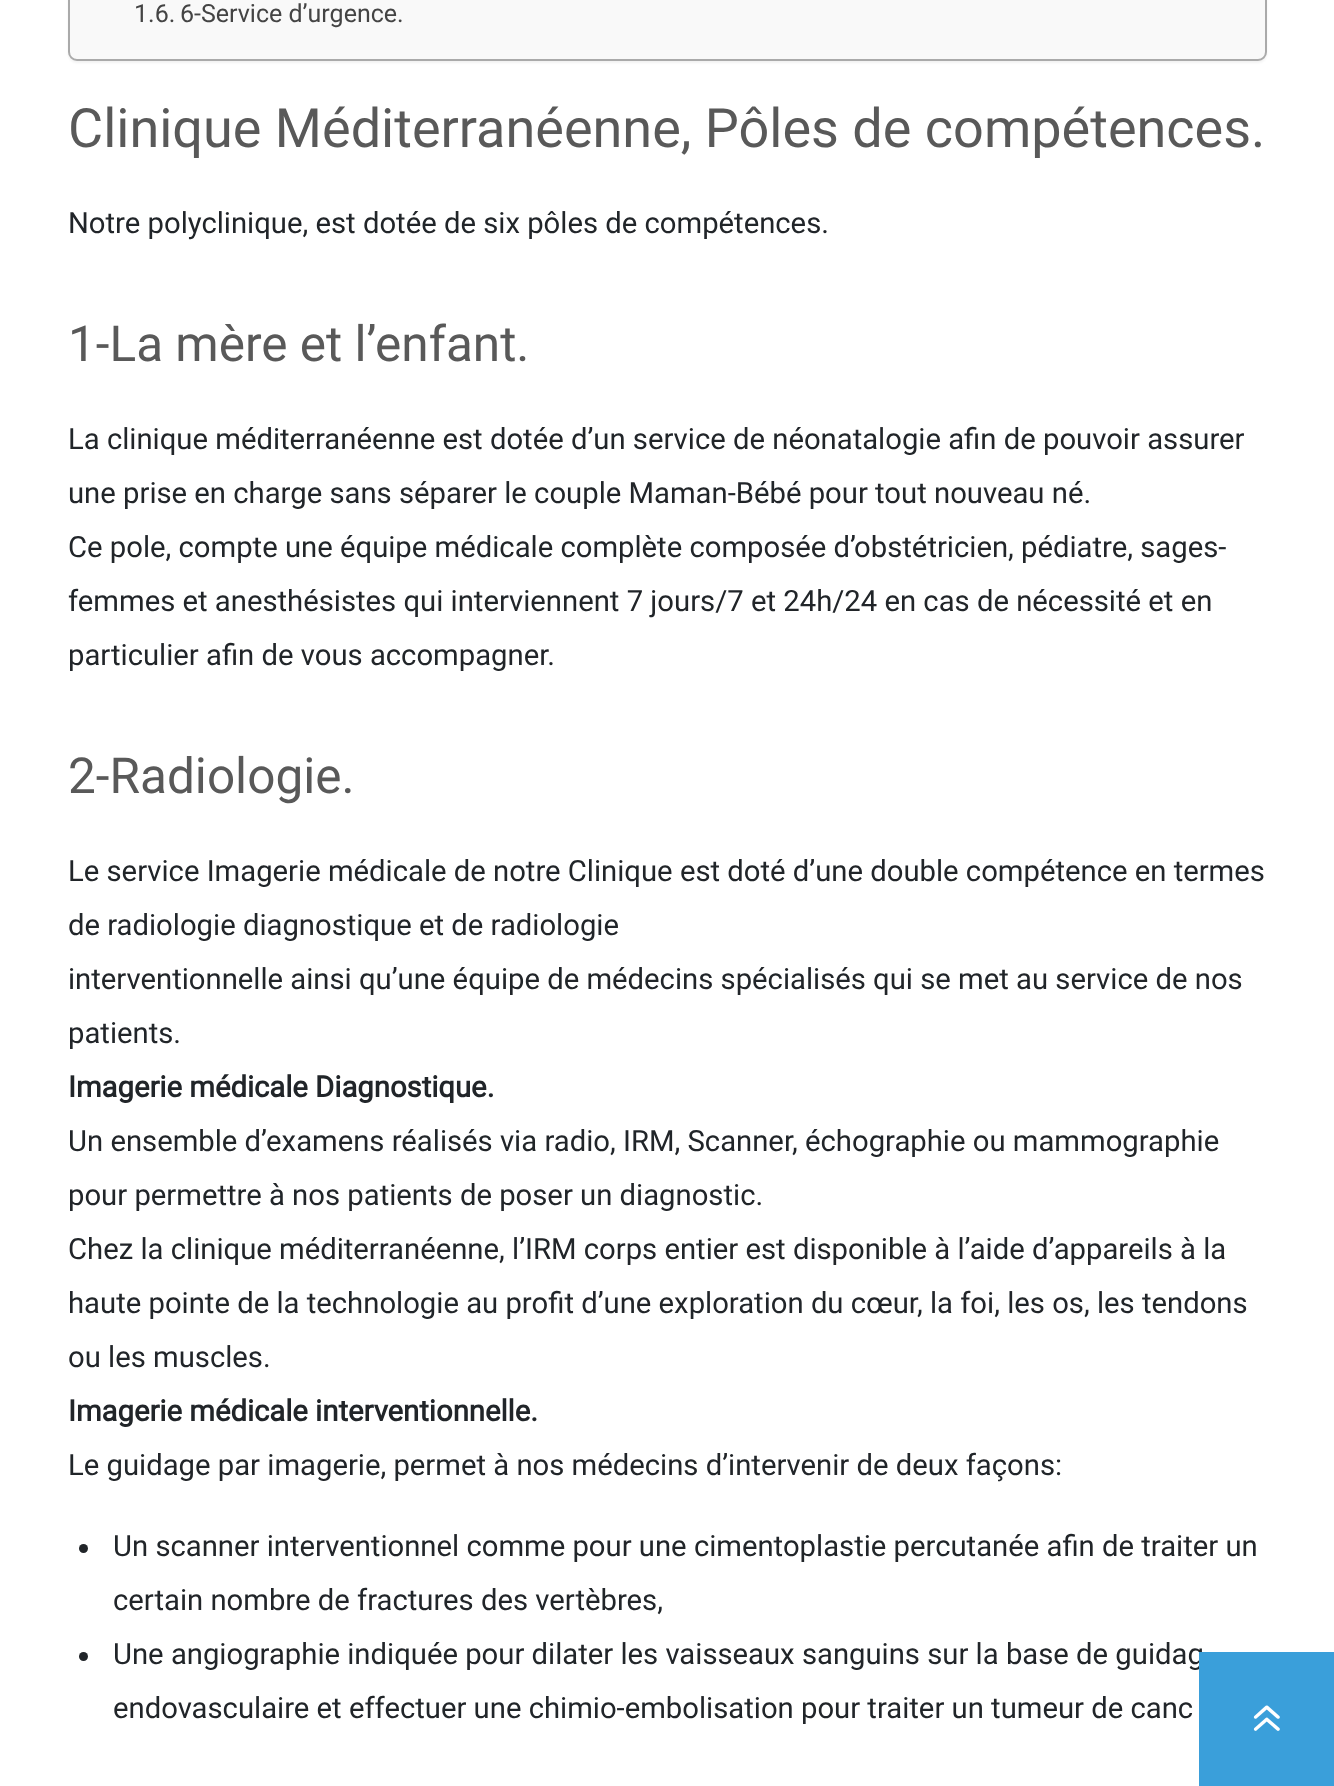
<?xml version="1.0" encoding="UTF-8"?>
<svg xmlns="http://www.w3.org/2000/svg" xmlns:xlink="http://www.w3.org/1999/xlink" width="1334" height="1786">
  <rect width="100%" height="100%" fill="#ffffff" />
  <rect x="68" y="-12" width="1199" height="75" rx="9" fill="#000000" fill-opacity="0.05" filter="blur(1px)" />
  <rect x="69" y="-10" width="1197" height="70" rx="8" fill="#f9f9f9" stroke="#aaaaaa" stroke-width="2" />
  <circle cx="83.5" cy="1548.5" r="4.5" fill="#212529" />
  <circle cx="83.5" cy="1656.5" r="4.5" fill="#212529" />
  <text x="134" y="22" style="font-family: Roboto; font-size: 25px; fill: #444444">1.6.</text>
  <text x="180" y="22" style="font-family: Roboto; font-size: 25px; fill: #444444">6-Service d’urgence.</text>
  <text x="68" y="147" style="font-family: Roboto; font-size: 54px; fill: #595959">Clinique Méditerranéenne, Pôles de compétences.</text>
  <text x="68" y="233" style="font-family: Roboto; font-size: 29.25px; fill: #212529">Notre polyclinique, est dotée de six pôles de compétences.</text>
  <text x="68" y="361" style="font-family: Roboto; font-size: 49.5px; fill: #595959">1-La mère et l’enfant.</text>
  <text x="68" y="449" style="font-family: Roboto; font-size: 29.25px; fill: #212529">La clinique méditerranéenne est dotée d’un service de néonatalogie afin de pouvoir assurer</text>
  <text x="68" y="503" style="font-family: Roboto; font-size: 29.25px; fill: #212529">une prise en charge sans séparer le couple Maman-Bébé pour tout nouveau né.</text>
  <text x="68" y="557" style="font-family: Roboto; font-size: 29.25px; fill: #212529">Ce pole, compte une équipe médicale complète composée d’obstétricien, pédiatre, sages-</text>
  <text x="68" y="611" style="font-family: Roboto; font-size: 29.25px; fill: #212529">femmes et anesthésistes qui interviennent 7 jours/7 et 24h/24 en cas de nécessité et en</text>
  <text x="68" y="665" style="font-family: Roboto; font-size: 29.25px; fill: #212529">particulier afin de vous accompagner.</text>
  <text x="68" y="793" style="font-family: Roboto; font-size: 49.5px; fill: #595959">2-Radiologie.</text>
  <text x="68" y="881" style="font-family: Roboto; font-size: 29.25px; fill: #212529">Le service Imagerie médicale de notre Clinique est doté d’une double compétence en termes</text>
  <text x="68" y="935" style="font-family: Roboto; font-size: 29.25px; fill: #212529">de radiologie diagnostique et de radiologie</text>
  <text x="68" y="989" style="font-family: Roboto; font-size: 29.25px; fill: #212529">interventionnelle ainsi qu’une équipe de médecins spécialisés qui se met au service de nos</text>
  <text x="68" y="1043" style="font-family: Roboto; font-size: 29.25px; fill: #212529">patients.</text>
  <text x="68" y="1097" style="font-family: Roboto; font-size: 29.25px; font-weight: bold; fill: #212529">Imagerie médicale Diagnostique.</text>
  <text x="68" y="1151" style="font-family: Roboto; font-size: 29.25px; fill: #212529">Un ensemble d’examens réalisés via radio, IRM, Scanner, échographie ou mammographie</text>
  <text x="68" y="1205" style="font-family: Roboto; font-size: 29.25px; fill: #212529">pour permettre à nos patients de poser un diagnostic.</text>
  <text x="68" y="1259" style="font-family: Roboto; font-size: 29.25px; fill: #212529">Chez la clinique méditerranéenne, l’IRM corps entier est disponible à l’aide d’appareils à la</text>
  <text x="68" y="1313" style="font-family: Roboto; font-size: 29.25px; fill: #212529">haute pointe de la technologie au profit d’une exploration du cœur, la foi, les os, les tendons</text>
  <text x="68" y="1367" style="font-family: Roboto; font-size: 29.25px; fill: #212529">ou les muscles.</text>
  <text x="68" y="1421" style="font-family: Roboto; font-size: 29.25px; font-weight: bold; fill: #212529">Imagerie médicale interventionnelle.</text>
  <text x="68" y="1475" style="font-family: Roboto; font-size: 29.25px; fill: #212529">Le guidage par imagerie, permet à nos médecins d’intervenir de deux façons:</text>
  <text x="113" y="1556" style="font-family: Roboto; font-size: 29.25px; fill: #212529">Un scanner interventionnel comme pour une cimentoplastie percutanée afin de traiter un</text>
  <text x="113" y="1610" style="font-family: Roboto; font-size: 29.25px; fill: #212529">certain nombre de fractures des vertèbres,</text>
  <text x="113" y="1664" style="font-family: Roboto; font-size: 29.25px; fill: #212529">Une angiographie indiquée pour dilater les vaisseaux sanguins sur la base de guidag</text>
  <text x="113" y="1718" style="font-family: Roboto; font-size: 29.25px; fill: #212529">endovasculaire et effectuer une chimio-embolisation pour traiter un tumeur de canc</text>
  <rect x="1199" y="1652" width="135" height="134" fill="#3a9fda" />
  <image x="1253" y="1705" width="27" height="26" xlink:href="image1.png" />
</svg>
